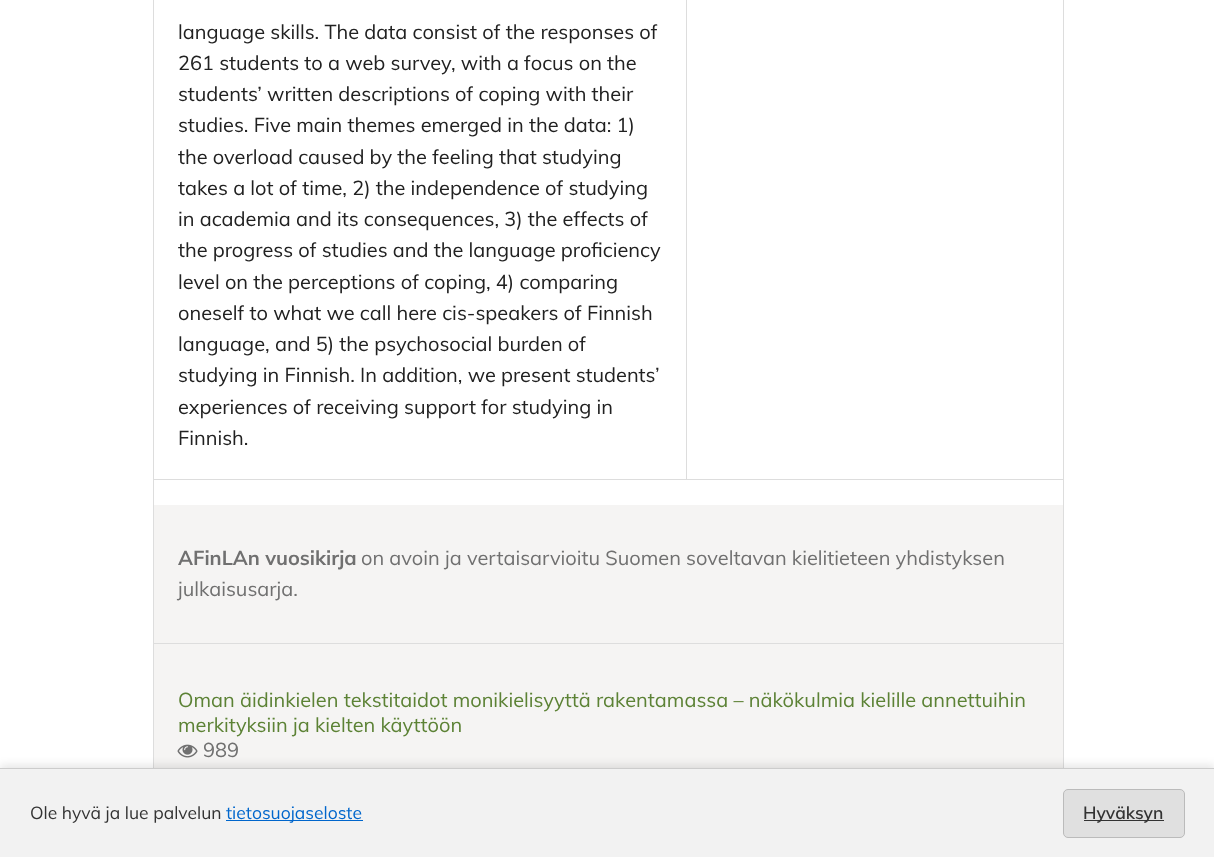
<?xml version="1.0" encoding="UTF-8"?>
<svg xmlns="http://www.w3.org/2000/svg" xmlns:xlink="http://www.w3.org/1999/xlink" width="1214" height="857">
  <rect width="100%" height="100%" fill="#ffffff" />
  <rect x="153" y="479" width="910" height="1" fill="#dddddd" />
  <rect x="154" y="505" width="909" height="263" fill="#f5f4f3" />
  <rect x="153" y="643" width="910" height="1" fill="#dddddd" />
  <rect x="153" width="1" height="768" fill="#dddddd" />
  <rect x="686" width="1" height="479" fill="#dddddd" />
  <rect x="1063" width="1" height="768" fill="#dddddd" />
  <image x="177" y="744" width="21" height="14" xlink:href="image1.png" />
  <rect y="765" width="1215" height="90" fill="#000000" fill-opacity="0.1" filter="blur(4px)" />
  <rect y="769" width="1214" height="88" fill="#f2f2f2" />
  <rect y="768" width="1214" height="1" fill="#cccccc" />
  <rect x="226" y="820" width="137" height="1" fill="#0066cc" />
  <rect x="1063.5" y="789.5" width="121" height="48" rx="4.5" fill="#e0e0e0" stroke="#bbbbbb" />
  <rect x="1084" y="820" width="80" height="1" fill="#333333" />
  <text x="178" y="39" style="font-family: Muli; font-size: 20px; fill: #212121">language skills. The data consist of the responses of</text>
  <text x="178" y="70" style="font-family: Muli; font-size: 20px; fill: #212121">261 students to a web survey, with a focus on the</text>
  <text x="178" y="101" style="font-family: Muli; font-size: 20px; fill: #212121">students’ written descriptions of coping with their</text>
  <text x="178" y="132" style="font-family: Muli; font-size: 20px; fill: #212121">studies. Five main themes emerged in the data: 1)</text>
  <text x="178" y="164" style="font-family: Muli; font-size: 20px; fill: #212121">the overload caused by the feeling that studying</text>
  <text x="178" y="195" style="font-family: Muli; font-size: 20px; fill: #212121">takes a lot of time, 2) the independence of studying</text>
  <text x="178" y="226" style="font-family: Muli; font-size: 20px; fill: #212121">in academia and its consequences, 3) the effects of</text>
  <text x="178" y="257" style="font-family: Muli; font-size: 20px; fill: #212121">the progress of studies and the language proficiency</text>
  <text x="178" y="289" style="font-family: Muli; font-size: 20px; fill: #212121">level on the perceptions of coping, 4) comparing</text>
  <text x="178" y="320" style="font-family: Muli; font-size: 20px; fill: #212121">oneself to what we call here cis-speakers of Finnish</text>
  <text x="178" y="351" style="font-family: Muli; font-size: 20px; fill: #212121">language, and 5) the psychosocial burden of</text>
  <text x="178" y="382" style="font-family: Muli; font-size: 20px; fill: #212121">studying in Finnish. In addition, we present students’</text>
  <text x="178" y="414" style="font-family: Muli; font-size: 20px; fill: #212121">experiences of receiving support for studying in</text>
  <text x="178" y="445" style="font-family: Muli; font-size: 20px; fill: #212121">Finnish.</text>
  <text x="178" y="565" style="font-family: Muli; font-size: 20px; font-weight: bold; fill: #707070">AFinLAn vuosikirja</text>
  <text x="361" y="565" style="font-family: Muli; font-size: 20px; fill: #707070">on avoin ja vertaisarvioitu Suomen soveltavan kielitieteen yhdistyksen</text>
  <text x="178" y="596" style="font-family: Muli; font-size: 20px; fill: #707070">julkaisusarja.</text>
  <text x="178" y="707" style="font-family: Muli; font-size: 20px; fill: #5c8235">Oman äidinkielen tekstitaidot monikielisyyttä rakentamassa – näkökulmia kielille annettuihin</text>
  <text x="178" y="732" style="font-family: Muli; font-size: 20px; fill: #5c8235">merkityksiin ja kielten käyttöön</text>
  <text x="203" y="757" style="font-family: Muli; font-size: 20px; fill: #707070">989</text>
  <text x="30" y="819" style="font-family: Muli; font-size: 17.5px; fill: #333333">Ole hyvä ja lue palvelun</text>
  <text x="226" y="819" style="font-family: Muli; font-size: 17.5px; fill: #0066cc">tietosuojaseloste</text>
  <text x="1083" y="819" style="font-family: Muli; font-size: 17.5px; font-weight: 600; fill: #333333">Hyväksyn</text>
</svg>
